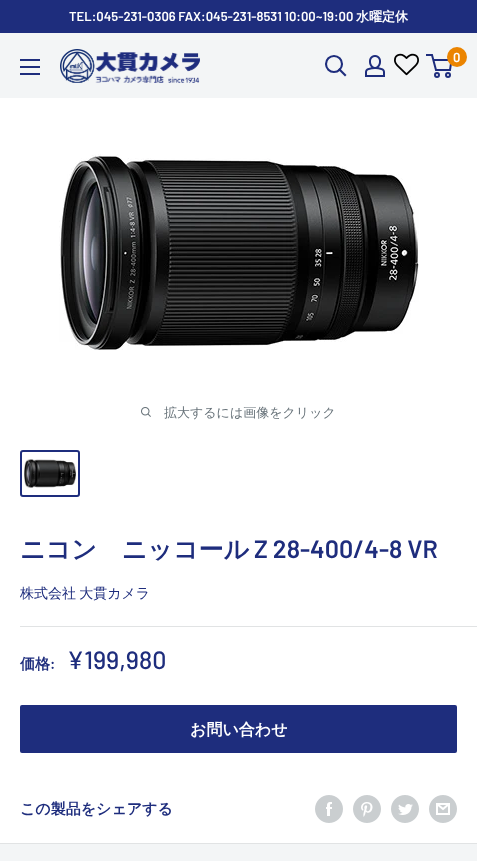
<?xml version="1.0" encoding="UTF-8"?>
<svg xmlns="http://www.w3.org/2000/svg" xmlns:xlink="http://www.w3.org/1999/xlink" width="477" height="861">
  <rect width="100%" height="100%" fill="#f3f5f6" />
  <rect width="477" height="33" fill="#1e2d7d" />
  <image x="60" y="49" width="140" height="34" xlink:href="image1.png" />
  <path d="M 345 75 l -5.5 -5.5" fill="none" stroke="#1e2d7d" stroke-width="2.1" stroke-linecap="square" />
  <circle cx="334" cy="64" r="8" fill="none" stroke="#1e2d7d" stroke-width="2.1" />
  <image x="365" y="55" width="20" height="22" xlink:href="image2.png" />
  <image x="394" y="53" width="25" height="23" xlink:href="image3.png" />
  <circle cx="437" cy="75" r="2" fill="none" stroke="#1e2d7d" stroke-width="2" />
  <circle cx="448" cy="75" r="2" fill="none" stroke="#1e2d7d" stroke-width="2" />
  <path d="M 433.5 60 h 18 l -1.5 10 h -14 l -4 -15 h -6" fill="none" stroke="#1e2d7d" stroke-width="2" />
  <circle cx="457" cy="57" r="10" fill="#eb8400" />
  <image x="20" y="59" width="20" height="16" xlink:href="image4.png" />
  <rect y="98" width="477" height="745" fill="#ffffff" />
  <image x="59" y="154" width="360" height="196" xlink:href="image5.png" />
  <image x="141" y="407" width="10" height="10" xlink:href="image6.png" />
  <rect x="21" y="451" width="58" height="45" rx="2" fill="none" stroke="#1e2d7d" stroke-width="2" />
  <image x="24" y="459" width="52" height="29" xlink:href="image7.png" />
  <rect y="843" width="477" height="1" fill="#e1e3e4" />
  <rect x="20" y="626" width="457" height="1" fill="#e1e3e4" />
  <rect x="20" y="705" width="437" height="48" rx="2" fill="#1e2d7d" />
  <image x="315" y="795" width="28" height="28" xlink:href="image8.png" />
  <image x="353" y="795" width="28" height="28" xlink:href="image9.png" />
  <image x="391" y="795" width="28" height="28" xlink:href="image10.png" />
  <image x="429" y="795" width="28" height="28" xlink:href="image11.png" />
  <text x="69" y="21" style="font-family: Barlow; font-size: 13px; font-weight: 600; fill: #ffffff">TEL:045-231-0306 FAX:045-231-8531 10:00~19:00</text>
  <text x="356" y="21" style="font-family: WenQuanYi Zen Hei; font-size: 13px; font-weight: bold; fill: #ffffff">水曜定休</text>
  <text x="453" y="62" style="font-family: Barlow; font-size: 13px; font-weight: 600; fill: #ffffff">0</text>
  <text x="164" y="417" style="font-family: WenQuanYi Zen Hei; font-size: 13px; font-weight: 500; fill: #677279">拡大するには画像をクリック</text>
  <text x="20" y="558" style="font-family: WenQuanYi Zen Hei; font-size: 25px; font-weight: bold; fill: #1e2d7d">ニコン　ニッコール</text>
  <text x="254" y="558" style="font-family: Barlow; font-size: 25px; font-weight: 600; fill: #1e2d7d">Z 28-400/4-8 VR</text>
  <text x="20" y="598" word-spacing="-1" style="font-family: WenQuanYi Zen Hei; font-size: 14px; font-weight: 500; fill: #1e2d7d">株式会社 大貫カメラ</text>
  <text x="20" y="669" style="font-family: WenQuanYi Zen Hei; font-size: 15px; font-weight: bold; fill: #1e2d7d">価格</text>
  <text x="50" y="669" style="font-family: Barlow; font-size: 15px; font-weight: 600; fill: #1e2d7d">:</text>
  <text x="67" y="669" style="font-family: Barlow; font-size: 25px; font-weight: 500; fill: #1e2d7d">¥199,980</text>
  <text x="190" y="735" style="font-family: WenQuanYi Zen Hei; font-size: 16px; font-weight: bold; fill: #ffffff">お問い合わせ</text>
  <text x="20" y="814" style="font-family: WenQuanYi Zen Hei; font-size: 15px; font-weight: bold; fill: #1e2d7d">この製品をシェアする</text>
</svg>
